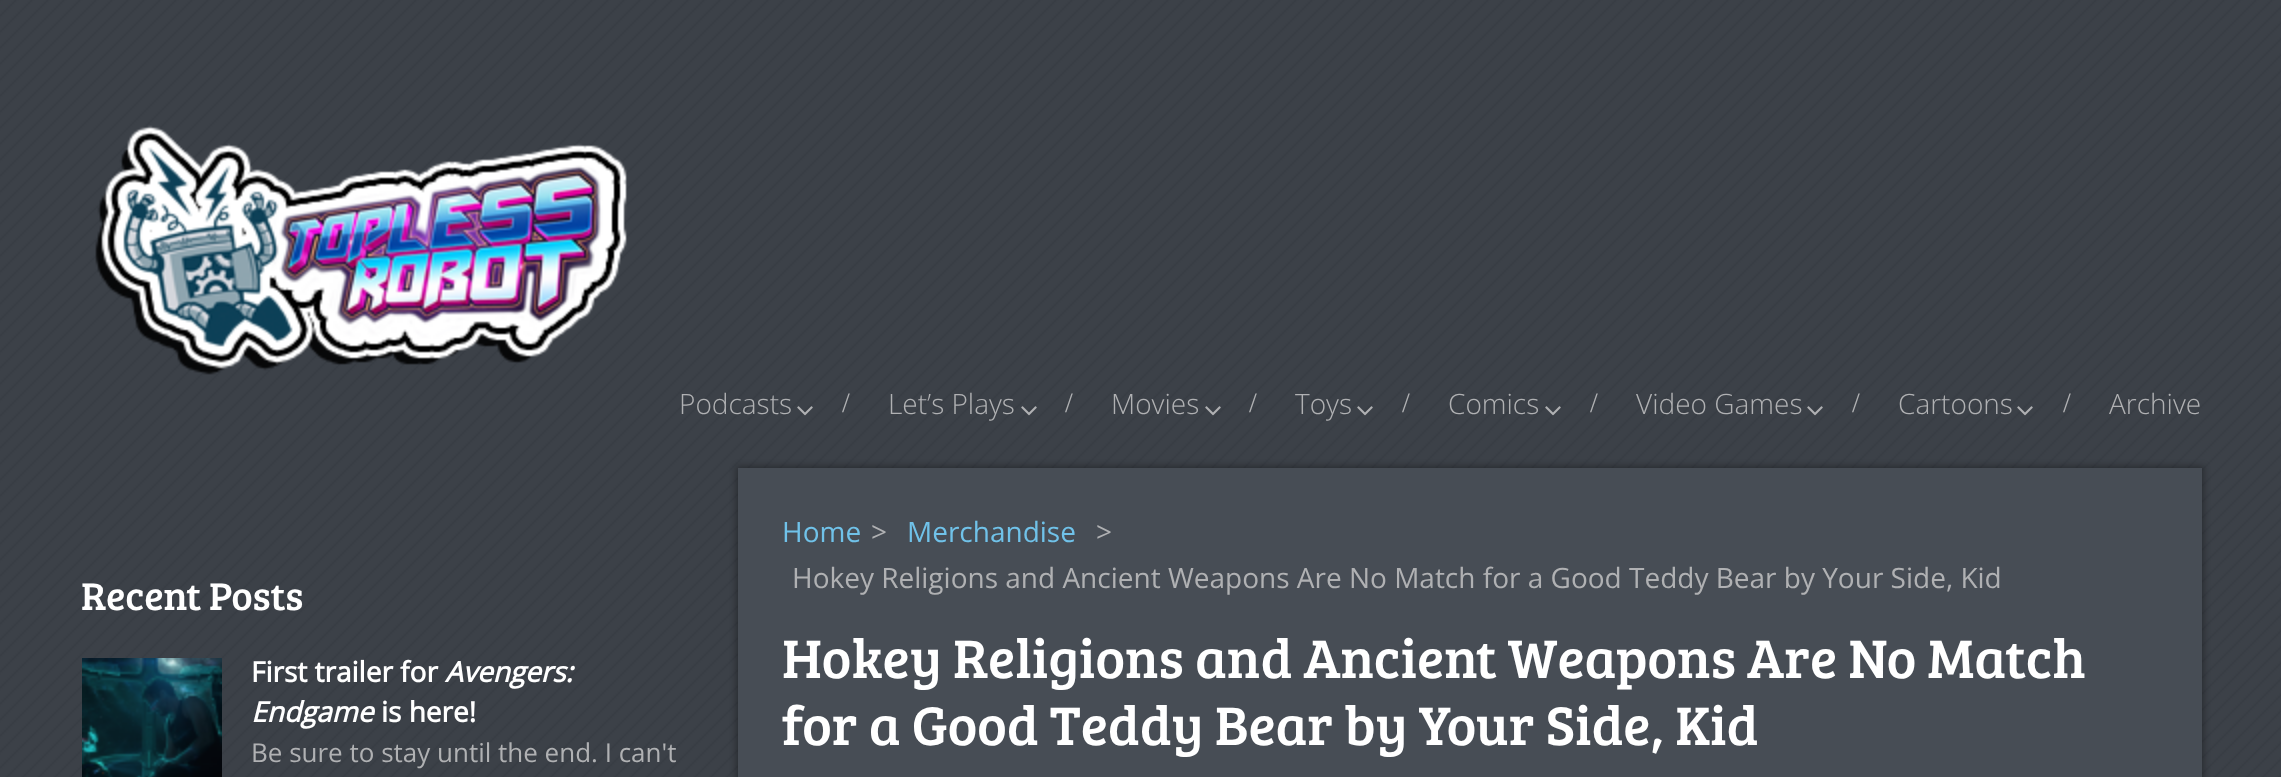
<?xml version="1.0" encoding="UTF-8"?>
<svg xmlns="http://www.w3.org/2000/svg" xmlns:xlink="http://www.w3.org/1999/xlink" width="2281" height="777">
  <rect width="100%" height="100%" fill="#ffffff" />
  <image x="0" y="0" width="2281" height="777" xlink:href="image1.png" />
  <image x="95" y="125" width="532" height="250" xlink:href="image2.png" />
  <image x="797" y="406" width="16" height="10" xlink:href="image3.png" />
  <image x="1021" y="406" width="16" height="10" xlink:href="image3.png" />
  <image x="1205" y="406" width="16" height="10" xlink:href="image4.png" />
  <image x="1357" y="406" width="16" height="10" xlink:href="image3.png" />
  <image x="1545" y="406" width="16" height="10" xlink:href="image5.png" />
  <image x="1807" y="406" width="16" height="10" xlink:href="image6.png" />
  <image x="2017" y="406" width="16" height="10" xlink:href="image7.png" />
  <image x="82" y="658" width="140" height="119" xlink:href="image8.png" />
  <rect x="736" y="466" width="1468" height="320" fill="#000000" fill-opacity="0.3" filter="blur(3px)" />
  <rect x="738" y="468" width="1464" height="309" fill="#474d55" />
  <text x="679" y="414" style="font-family: Open Sans; font-size: 28px; font-weight: 300; fill: #b0b1b3">Podcasts</text>
  <text x="842" y="412" style="font-family: Liberation Serif; font-size: 28px; fill: #b0b1b3">/</text>
  <text x="888" y="414" style="font-family: Open Sans; font-size: 28px; font-weight: 300; fill: #b0b1b3">Let’s Plays</text>
  <text x="1065" y="412" style="font-family: Liberation Serif; font-size: 28px; fill: #b0b1b3">/</text>
  <text x="1111" y="414" style="font-family: Open Sans; font-size: 28px; font-weight: 300; fill: #b0b1b3">Movies</text>
  <text x="1249" y="412" style="font-family: Liberation Serif; font-size: 28px; fill: #b0b1b3">/</text>
  <text x="1295" y="414" style="font-family: Open Sans; font-size: 28px; font-weight: 300; fill: #b0b1b3">Toys</text>
  <text x="1402" y="412" style="font-family: Liberation Serif; font-size: 28px; fill: #b0b1b3">/</text>
  <text x="1448" y="414" style="font-family: Open Sans; font-size: 28px; font-weight: 300; fill: #b0b1b3">Comics</text>
  <text x="1590" y="412" style="font-family: Liberation Serif; font-size: 28px; fill: #b0b1b3">/</text>
  <text x="1636" y="414" style="font-family: Open Sans; font-size: 28px; font-weight: 300; fill: #b0b1b3">Video Games</text>
  <text x="1852" y="412" style="font-family: Liberation Serif; font-size: 28px; fill: #b0b1b3">/</text>
  <text x="1898" y="414" style="font-family: Open Sans; font-size: 28px; font-weight: 300; fill: #b0b1b3">Cartoons</text>
  <text x="2063" y="412" style="font-family: Liberation Serif; font-size: 28px; fill: #b0b1b3">/</text>
  <text x="2109" y="414" style="font-family: Open Sans; font-size: 28px; font-weight: 300; fill: #b0b1b3">Archive</text>
  <text x="81" y="610" style="font-family: Bree Serif; font-size: 40px; fill: #ffffff">Recent Posts</text>
  <text x="251" y="682" style="font-family: Open Sans; font-size: 28px; font-weight: bold; fill: #ffffff">First trailer for</text>
  <text x="445" y="682" style="font-family: Open Sans; font-size: 28px; font-weight: bold; font-style: italic; fill: #ffffff">Avengers:</text>
  <text x="251" y="722" style="font-family: Open Sans; font-size: 28px; font-weight: bold; font-style: italic; fill: #ffffff">Endgame</text>
  <text x="381" y="722" style="font-family: Open Sans; font-size: 28px; font-weight: bold; fill: #ffffff">is here!</text>
  <text x="251" y="762" style="font-family: Open Sans; font-size: 26px; fill: #b0b1b3">Be sure to stay until the end. I can't</text>
  <text x="782" y="542" style="font-family: Open Sans; font-size: 28px; fill: #70c2e9">Home</text>
  <text x="871" y="542" style="font-family: Open Sans; font-size: 28px; fill: #b0b1b3">&gt;</text>
  <text x="907" y="542" style="font-family: Open Sans; font-size: 28px; fill: #70c2e9">Merchandise</text>
  <text x="1096" y="542" style="font-family: Open Sans; font-size: 28px; fill: #b0b1b3">&gt;</text>
  <text x="792" y="588" style="font-family: Open Sans; font-size: 28px; fill: #b0b1b3">Hokey Religions and Ancient Weapons Are No Match for a Good Teddy Bear by Your Side, Kid</text>
  <text x="782" y="678" style="font-family: Bree Serif; font-size: 56px; fill: #ffffff">Hokey Religions and Ancient Weapons Are No Match</text>
  <text x="782" y="745" style="font-family: Bree Serif; font-size: 56px; fill: #ffffff">for a Good Teddy Bear by Your Side, Kid</text>
</svg>
